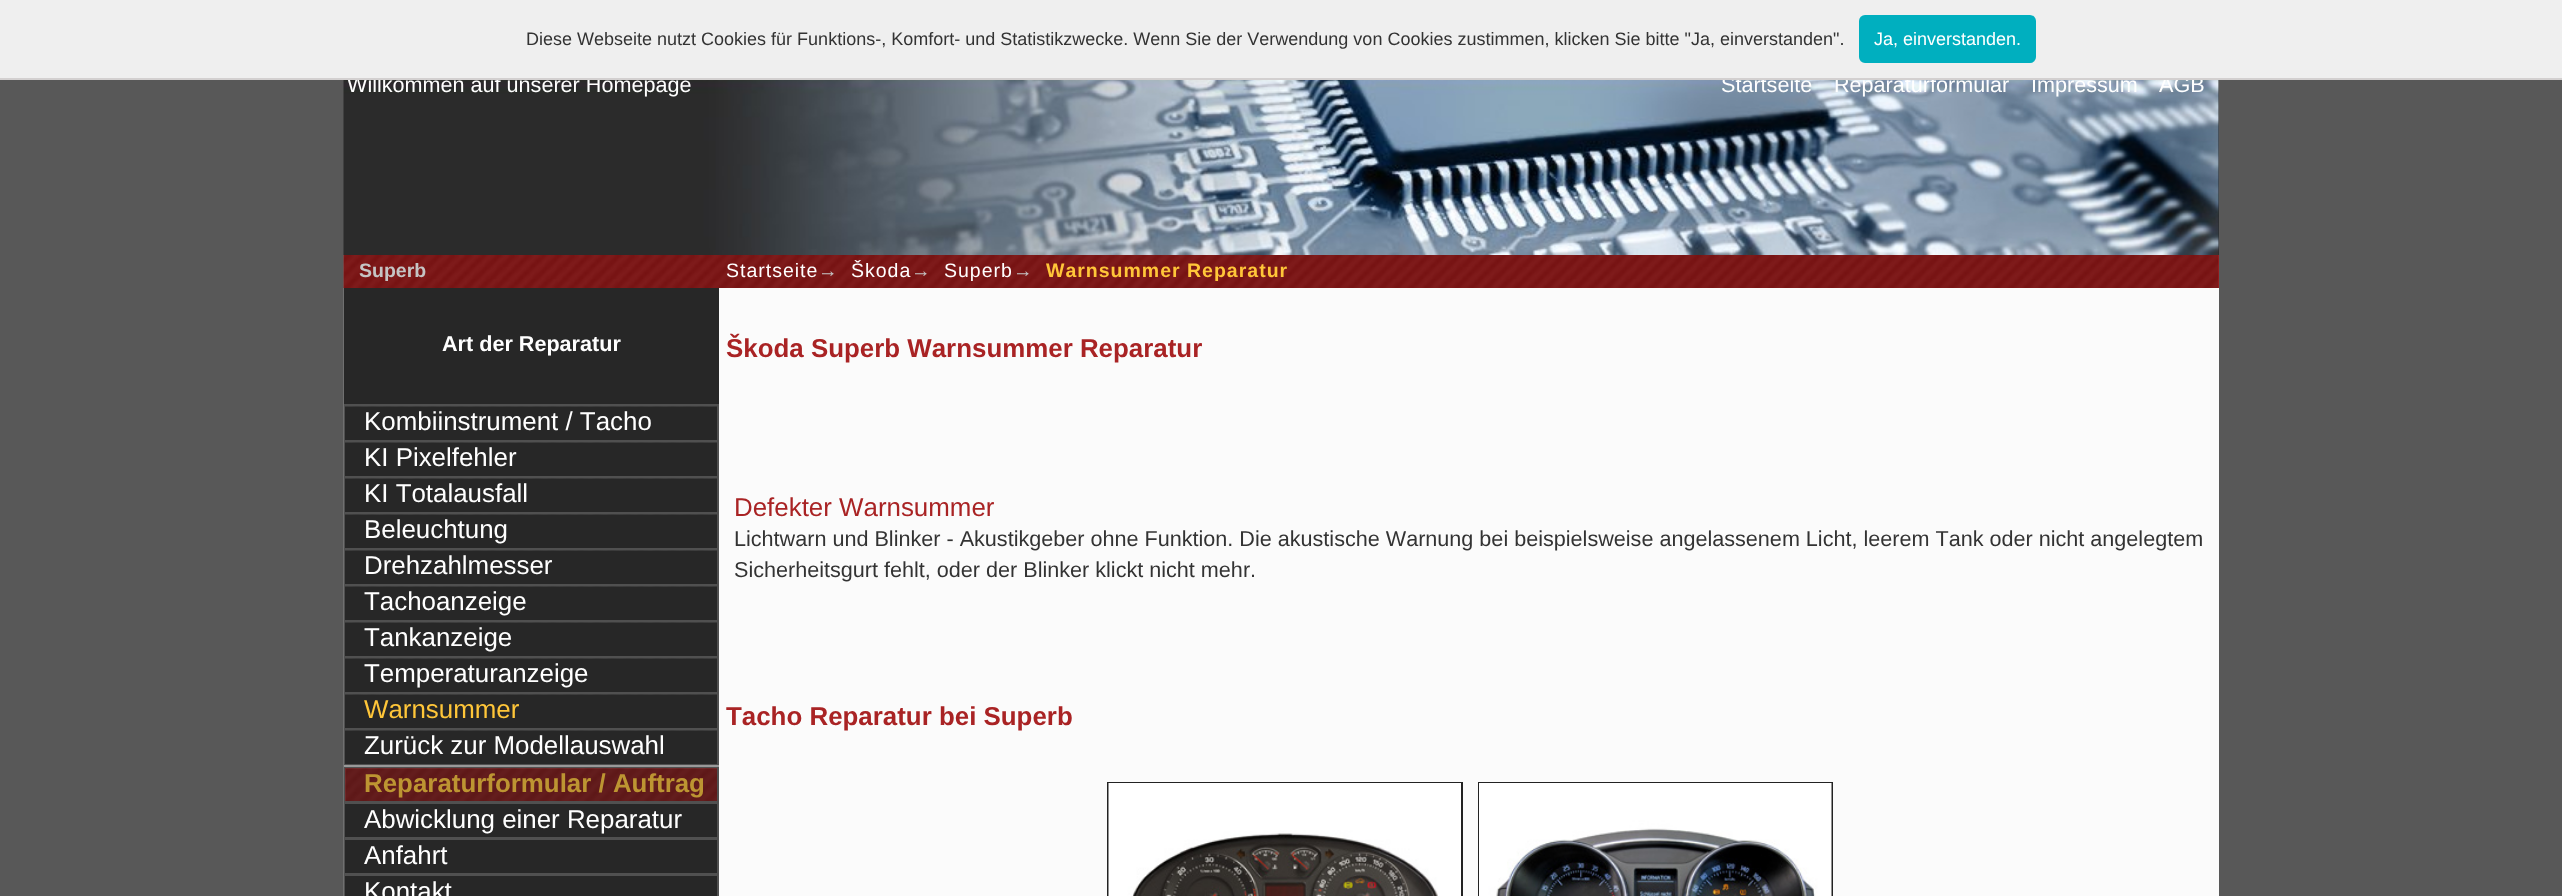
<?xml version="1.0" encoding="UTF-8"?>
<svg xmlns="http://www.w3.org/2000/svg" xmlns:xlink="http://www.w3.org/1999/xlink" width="2562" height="896">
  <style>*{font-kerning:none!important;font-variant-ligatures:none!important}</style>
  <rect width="100%" height="100%" fill="#585858" />
  <rect x="2218" y="80" width="1" height="175" fill="#2b2b2b" />
  <image x="343" y="80" width="1876" height="175" xlink:href="image1.png" />
  <image x="343" y="255" width="1" height="641" xlink:href="image2.png" />
  <rect x="719" y="288" width="1500" height="608" fill="#fbfbfb" />
  <rect x="2218" y="255" width="1" height="33" fill="#a92324" />
  <image x="343" y="255" width="1876" height="33" xlink:href="image3.png" />
  <rect x="1108" y="783" width="354" height="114" fill="none" stroke="#222222" stroke-width="2" />
  <image x="1108" y="783" width="353" height="113" xlink:href="image4.png" />
  <rect x="1479" y="783" width="353" height="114" fill="none" stroke="#222222" stroke-width="2" />
  <image x="1479" y="783" width="353" height="113" xlink:href="image5.png" />
  <rect x="344" y="288" width="375" height="513" fill="#272727" />
  <rect x="344" y="404" width="375" height="1" fill="#505050" />
  <rect x="345" y="406" width="373" height="34" fill="none" stroke="#505050" stroke-width="2" />
  <rect x="345" y="407" width="372" height="33" fill="#272727" />
  <image x="345" y="406" width="372" height="1" xlink:href="image6.png" />
  <rect x="345" y="442" width="373" height="34" fill="none" stroke="#505050" stroke-width="2" />
  <rect x="345" y="443" width="372" height="33" fill="#272727" />
  <image x="345" y="442" width="372" height="1" xlink:href="image6.png" />
  <rect x="345" y="478" width="373" height="34" fill="none" stroke="#505050" stroke-width="2" />
  <rect x="345" y="479" width="372" height="33" fill="#272727" />
  <image x="345" y="478" width="372" height="1" xlink:href="image6.png" />
  <rect x="345" y="514" width="373" height="34" fill="none" stroke="#505050" stroke-width="2" />
  <rect x="345" y="515" width="372" height="33" fill="#272727" />
  <image x="345" y="514" width="372" height="1" xlink:href="image6.png" />
  <rect x="345" y="550" width="373" height="34" fill="none" stroke="#505050" stroke-width="2" />
  <rect x="345" y="551" width="372" height="33" fill="#272727" />
  <image x="345" y="550" width="372" height="1" xlink:href="image6.png" />
  <rect x="345" y="586" width="373" height="34" fill="none" stroke="#505050" stroke-width="2" />
  <rect x="345" y="587" width="372" height="33" fill="#272727" />
  <image x="345" y="586" width="372" height="1" xlink:href="image6.png" />
  <rect x="345" y="622" width="373" height="34" fill="none" stroke="#505050" stroke-width="2" />
  <rect x="345" y="623" width="372" height="33" fill="#272727" />
  <image x="345" y="622" width="372" height="1" xlink:href="image6.png" />
  <rect x="345" y="658" width="373" height="34" fill="none" stroke="#505050" stroke-width="2" />
  <rect x="345" y="659" width="372" height="33" fill="#272727" />
  <image x="345" y="658" width="372" height="1" xlink:href="image6.png" />
  <rect x="345" y="694" width="373" height="34" fill="none" stroke="#505050" stroke-width="2" />
  <rect x="345" y="695" width="372" height="33" fill="#272727" />
  <image x="345" y="694" width="372" height="1" xlink:href="image6.png" />
  <rect x="345" y="730" width="373" height="34" fill="none" stroke="#505050" stroke-width="2" />
  <rect x="345" y="731" width="372" height="33" fill="#272727" />
  <image x="345" y="730" width="372" height="1" xlink:href="image6.png" />
  <rect x="344" y="765" width="375" height="2" fill="#999999" />
  <rect x="345" y="768" width="373" height="34" fill="none" stroke="#505050" stroke-width="2" />
  <image x="345" y="768" width="372" height="33" xlink:href="image7.png" />
  <rect x="345" y="804" width="373" height="34" fill="none" stroke="#505050" stroke-width="2" />
  <rect x="345" y="804" width="372" height="33" fill="#272727" />
  <rect x="345" y="840" width="373" height="34" fill="none" stroke="#505050" stroke-width="2" />
  <rect x="345" y="840" width="372" height="33" fill="#272727" />
  <rect x="345" y="876" width="373" height="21" fill="none" stroke="#505050" stroke-width="2" />
  <rect x="345" y="876" width="372" height="20" fill="#272727" />
  <text x="347" y="92" style="font-family: Liberation Sans; font-size: 21.6px; fill: #ffffff">Willkommen auf unserer Homepage</text>
  <text x="1721" y="92" style="font-family: Liberation Sans; font-size: 21.6px; fill: #ffffff">Startseite</text>
  <text x="1834" y="92" style="font-family: Liberation Sans; font-size: 21.6px; fill: #ffffff">Reparaturformular</text>
  <text x="2031" y="92" style="font-family: Liberation Sans; font-size: 21.6px; fill: #ffffff">Impressum</text>
  <text x="2159" y="92" style="font-family: Liberation Sans; font-size: 21.6px; fill: #ffffff">AGB</text>
  <rect width="2562" height="78" fill="#efefef" />
  <rect x="1859" y="15" width="177" height="48" rx="6" fill="#00afbf" />
  <text x="1874" y="45" style="font-family: Liberation Sans; font-size: 18px; fill: #ffffff">Ja, einverstanden.</text>
  <text x="526" y="45" style="font-family: Liberation Sans; font-size: 18px; fill: #333333">Diese Webseite nutzt Cookies für Funktions-, Komfort- und Statistikzwecke. Wenn Sie der Verwendung von Cookies zustimmen, klicken Sie bitte "Ja, einverstanden".</text>
  <rect y="78" width="2562" height="2" fill="#d3d0d0" />
  <text x="359" y="277" style="font-family: Liberation Sans; font-size: 19.5px; font-weight: bold; fill: #c5c5c5">Superb</text>
  <text x="726" y="277" style="font-family: Liberation Sans; font-size: 19.5px; letter-spacing: 1px; fill: #ffffff">Startseite</text>
  <text x="818" y="277" style="font-family: Liberation Sans; font-size: 19.5px; letter-spacing: 1px; fill: #c5c5c5"> →</text>
  <text x="851" y="277" style="font-family: Liberation Sans; font-size: 19.5px; letter-spacing: 1px; fill: #ffffff">Škoda</text>
  <text x="911" y="277" style="font-family: Liberation Sans; font-size: 19.5px; letter-spacing: 1px; fill: #c5c5c5"> →</text>
  <text x="944" y="277" style="font-family: Liberation Sans; font-size: 19.5px; letter-spacing: 1px; fill: #ffffff">Superb</text>
  <text x="1013" y="277" style="font-family: Liberation Sans; font-size: 19.5px; letter-spacing: 1px; fill: #c5c5c5"> →</text>
  <text x="1046" y="277" style="font-family: Liberation Sans; font-size: 19.5px; font-weight: bold; letter-spacing: 1px; fill: #ffc639">Warnsummer Reparatur</text>
  <text x="726" y="357" style="font-family: Liberation Sans; font-size: 25.9px; font-weight: bold; fill: #a92324">Škoda Superb Warnsummer Reparatur</text>
  <text x="734" y="516" style="font-family: Liberation Sans; font-size: 25.9px; fill: #a92324">Defekter Warnsummer</text>
  <text x="734" y="546" style="font-family: Liberation Sans; font-size: 21.6px; fill: #333333">Lichtwarn und Blinker - Akustikgeber ohne Funktion. Die akustische Warnung bei beispielsweise angelassenem Licht, leerem Tank oder nicht angelegtem</text>
  <text x="734" y="577" style="font-family: Liberation Sans; font-size: 21.6px; fill: #333333">Sicherheitsgurt fehlt, oder der Blinker klickt nicht mehr.</text>
  <text x="726" y="725" style="font-family: Liberation Sans; font-size: 25.9px; font-weight: bold; fill: #a92324">Tacho Reparatur bei Superb</text>
  <text x="442" y="351" style="font-family: Liberation Sans; font-size: 21.6px; font-weight: bold; fill: #ffffff">Art der Reparatur</text>
  <text x="364" y="430" style="font-family: Liberation Sans; font-size: 25.9px; fill: #ffffff">Kombiinstrument / Tacho</text>
  <text x="364" y="466" style="font-family: Liberation Sans; font-size: 25.9px; fill: #ffffff">KI Pixelfehler</text>
  <text x="364" y="502" style="font-family: Liberation Sans; font-size: 25.9px; fill: #ffffff">KI Totalausfall</text>
  <text x="364" y="538" style="font-family: Liberation Sans; font-size: 25.9px; fill: #ffffff">Beleuchtung</text>
  <text x="364" y="574" style="font-family: Liberation Sans; font-size: 25.9px; fill: #ffffff">Drehzahlmesser</text>
  <text x="364" y="610" style="font-family: Liberation Sans; font-size: 25.9px; fill: #ffffff">Tachoanzeige</text>
  <text x="364" y="646" style="font-family: Liberation Sans; font-size: 25.9px; fill: #ffffff">Tankanzeige</text>
  <text x="364" y="682" style="font-family: Liberation Sans; font-size: 25.9px; fill: #ffffff">Temperaturanzeige</text>
  <text x="364" y="718" style="font-family: Liberation Sans; font-size: 25.9px; fill: #ffc639">Warnsummer</text>
  <text x="364" y="754" style="font-family: Liberation Sans; font-size: 25.9px; fill: #ffffff">Zurück zur Modellauswahl</text>
  <text x="364" y="792" style="font-family: Liberation Sans; font-size: 25.9px; font-weight: bold; fill: #bd9532">Reparaturformular / Auftrag</text>
  <text x="364" y="828" style="font-family: Liberation Sans; font-size: 25.9px; fill: #ffffff">Abwicklung einer Reparatur</text>
  <text x="364" y="864" style="font-family: Liberation Sans; font-size: 25.9px; fill: #ffffff">Anfahrt</text>
  <text x="364" y="900" style="font-family: Liberation Sans; font-size: 25.9px; fill: #ffffff">Kontakt</text>
</svg>
